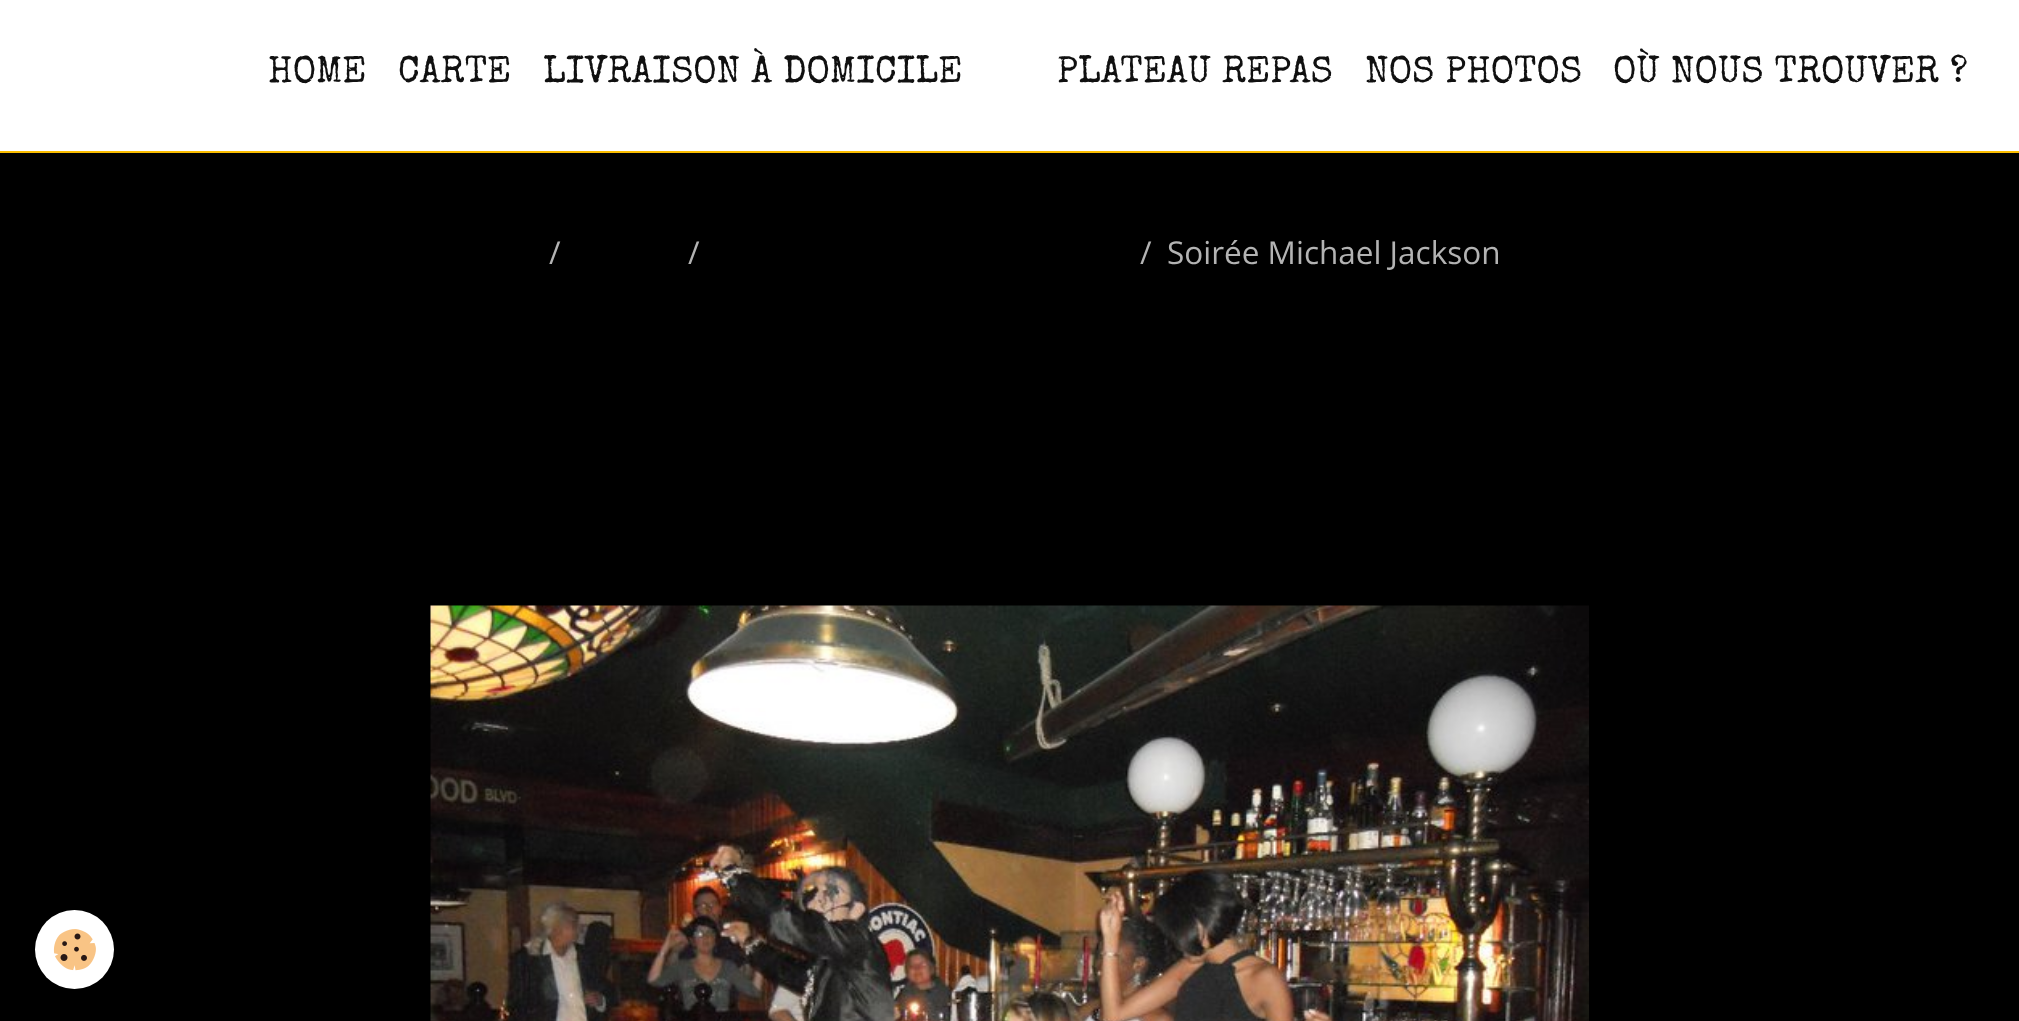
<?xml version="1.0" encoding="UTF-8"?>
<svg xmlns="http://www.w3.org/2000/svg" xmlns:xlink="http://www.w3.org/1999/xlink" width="2019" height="1021">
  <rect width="100%" height="100%" fill="#000000" />
  <rect width="2019" height="151" fill="#ffffff" />
  <rect y="151" width="2019" height="2" fill="#fbbd00" />
  <image x="430" y="605" width="1159" height="416" xlink:href="image1.png" />
  <circle cx="74.5" cy="949.5" r="39.5" fill="#ffffff" />
  <image x="53" y="929" width="43" height="42" xlink:href="image2.png" />
  <text x="268" y="82" style="font-family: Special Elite; font-size: 37.75px; fill: #101010">HOME</text>
  <text x="398" y="82" style="font-family: Special Elite; font-size: 37.75px; fill: #101010">CARTE</text>
  <text x="543" y="82" style="font-family: Special Elite; font-size: 37.75px; fill: #101010">LIVRAISON À DOMICILE</text>
  <text x="1057" y="82" style="font-family: Special Elite; font-size: 37.75px; fill: #101010">PLATEAU REPAS</text>
  <text x="1365" y="82" style="font-family: Special Elite; font-size: 37.75px; fill: #101010">NOS PHOTOS</text>
  <text x="1613" y="82" style="font-family: Special Elite; font-size: 37.75px; fill: #101010">OÙ NOUS TROUVER ?</text>
  <text x="549" y="264" style="font-family: Open Sans; font-size: 31.5px; fill: #b3b3b3">/</text>
  <text x="688" y="264" style="font-family: Open Sans; font-size: 31.5px; fill: #b3b3b3">/</text>
  <text x="1140" y="264" style="font-family: Open Sans; font-size: 31.5px; fill: #b3b3b3">/</text>
  <text x="1167" y="264" style="font-family: Open Sans; font-size: 31.5px; fill: #b3b3b3">Soirée Michael Jackson</text>
</svg>
